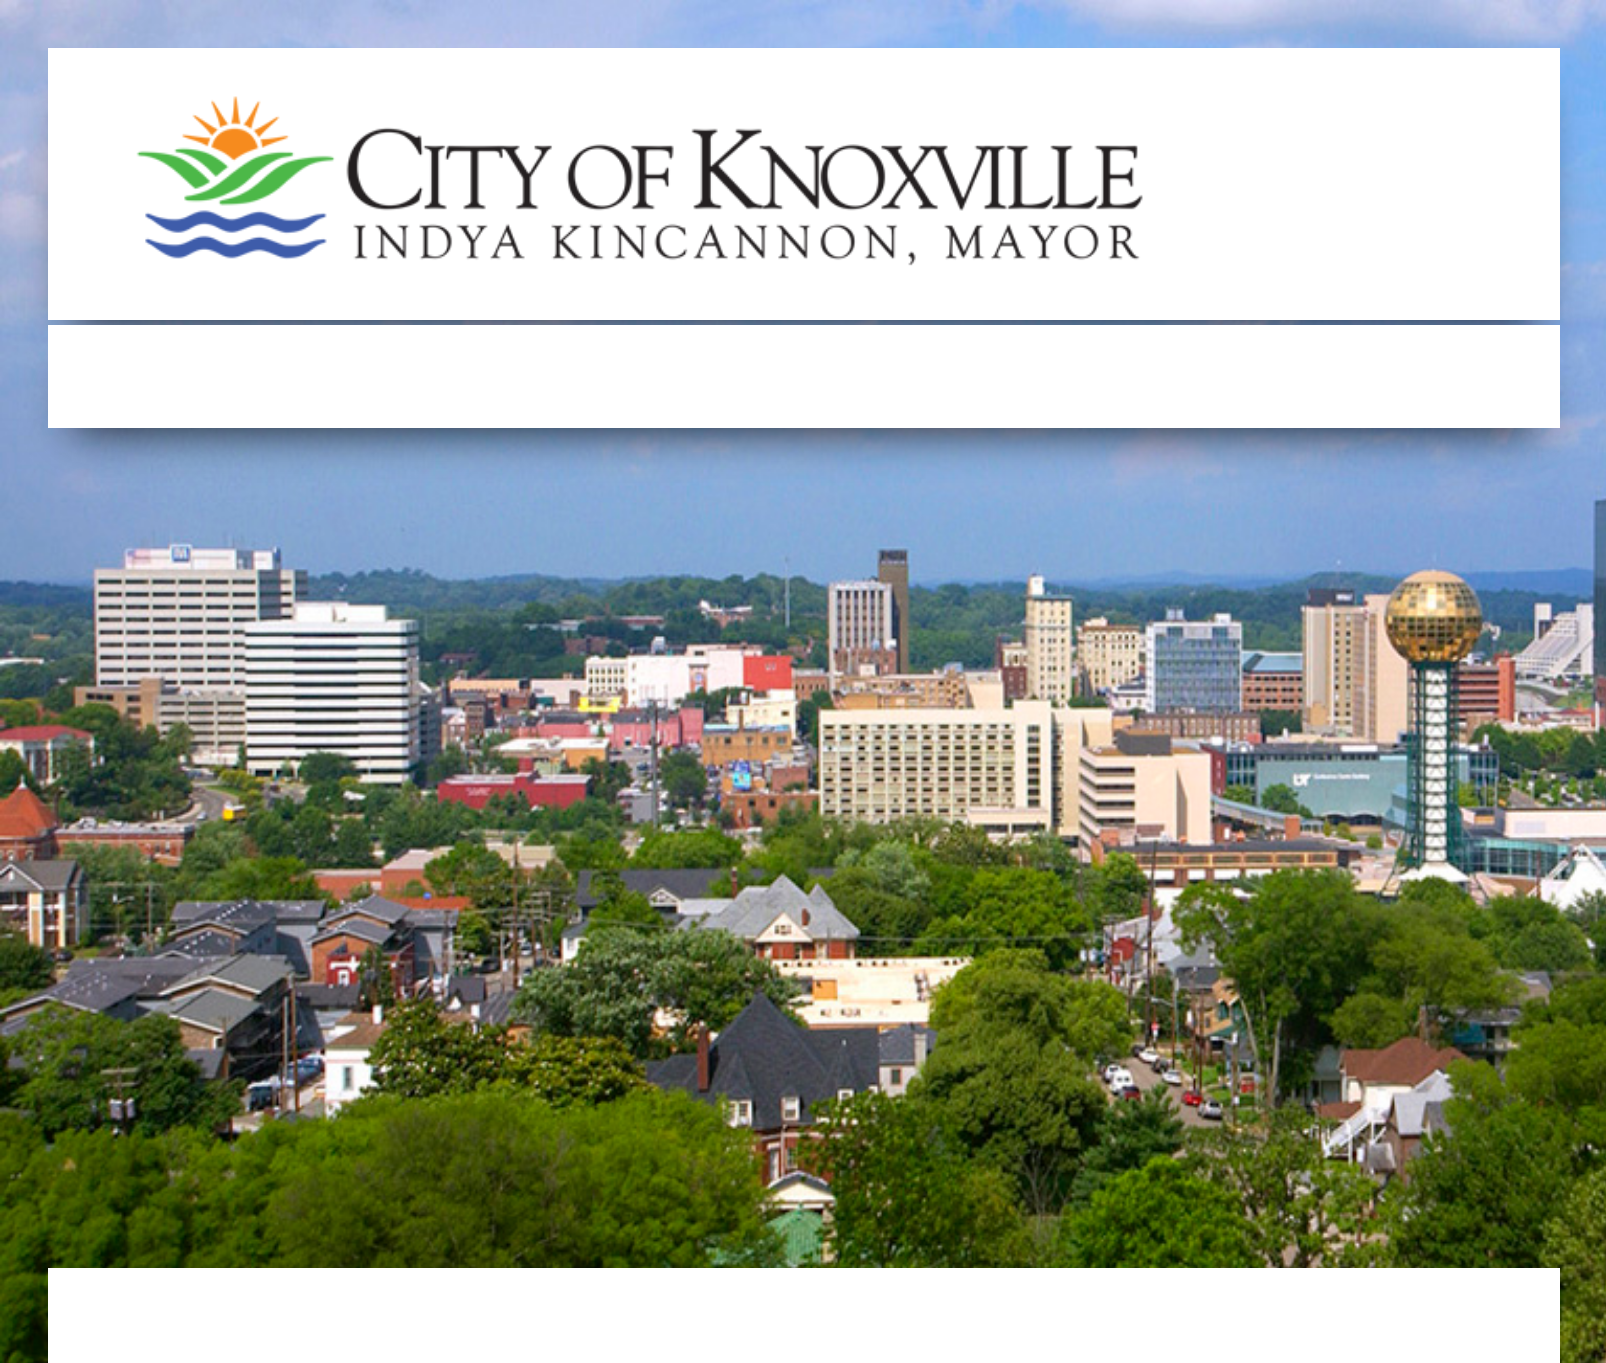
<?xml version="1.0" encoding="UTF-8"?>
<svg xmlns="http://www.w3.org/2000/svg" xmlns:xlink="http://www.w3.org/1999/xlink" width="1606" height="1363">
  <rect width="100%" height="100%" fill="#ffffff" />
  <image x="0" y="0" width="1606" height="1363" xlink:href="image1.png" />
  <rect x="73" y="100" width="1462" height="223" fill="#000000" fill-opacity="0.8" filter="blur(22.5px)" />
  <rect x="48" y="48" width="1512" height="272" fill="#ffffff" />
  <image x="136" y="96" width="1007" height="170" xlink:href="image2.png" />
  <rect x="73" y="378" width="1462" height="52" fill="#000000" fill-opacity="0.8" filter="blur(22.5px)" />
  <rect x="48" y="325" width="1512" height="103" fill="#ffffff" />
  <rect x="48" y="1268" width="1512" height="95" fill="#ffffff" />
</svg>
